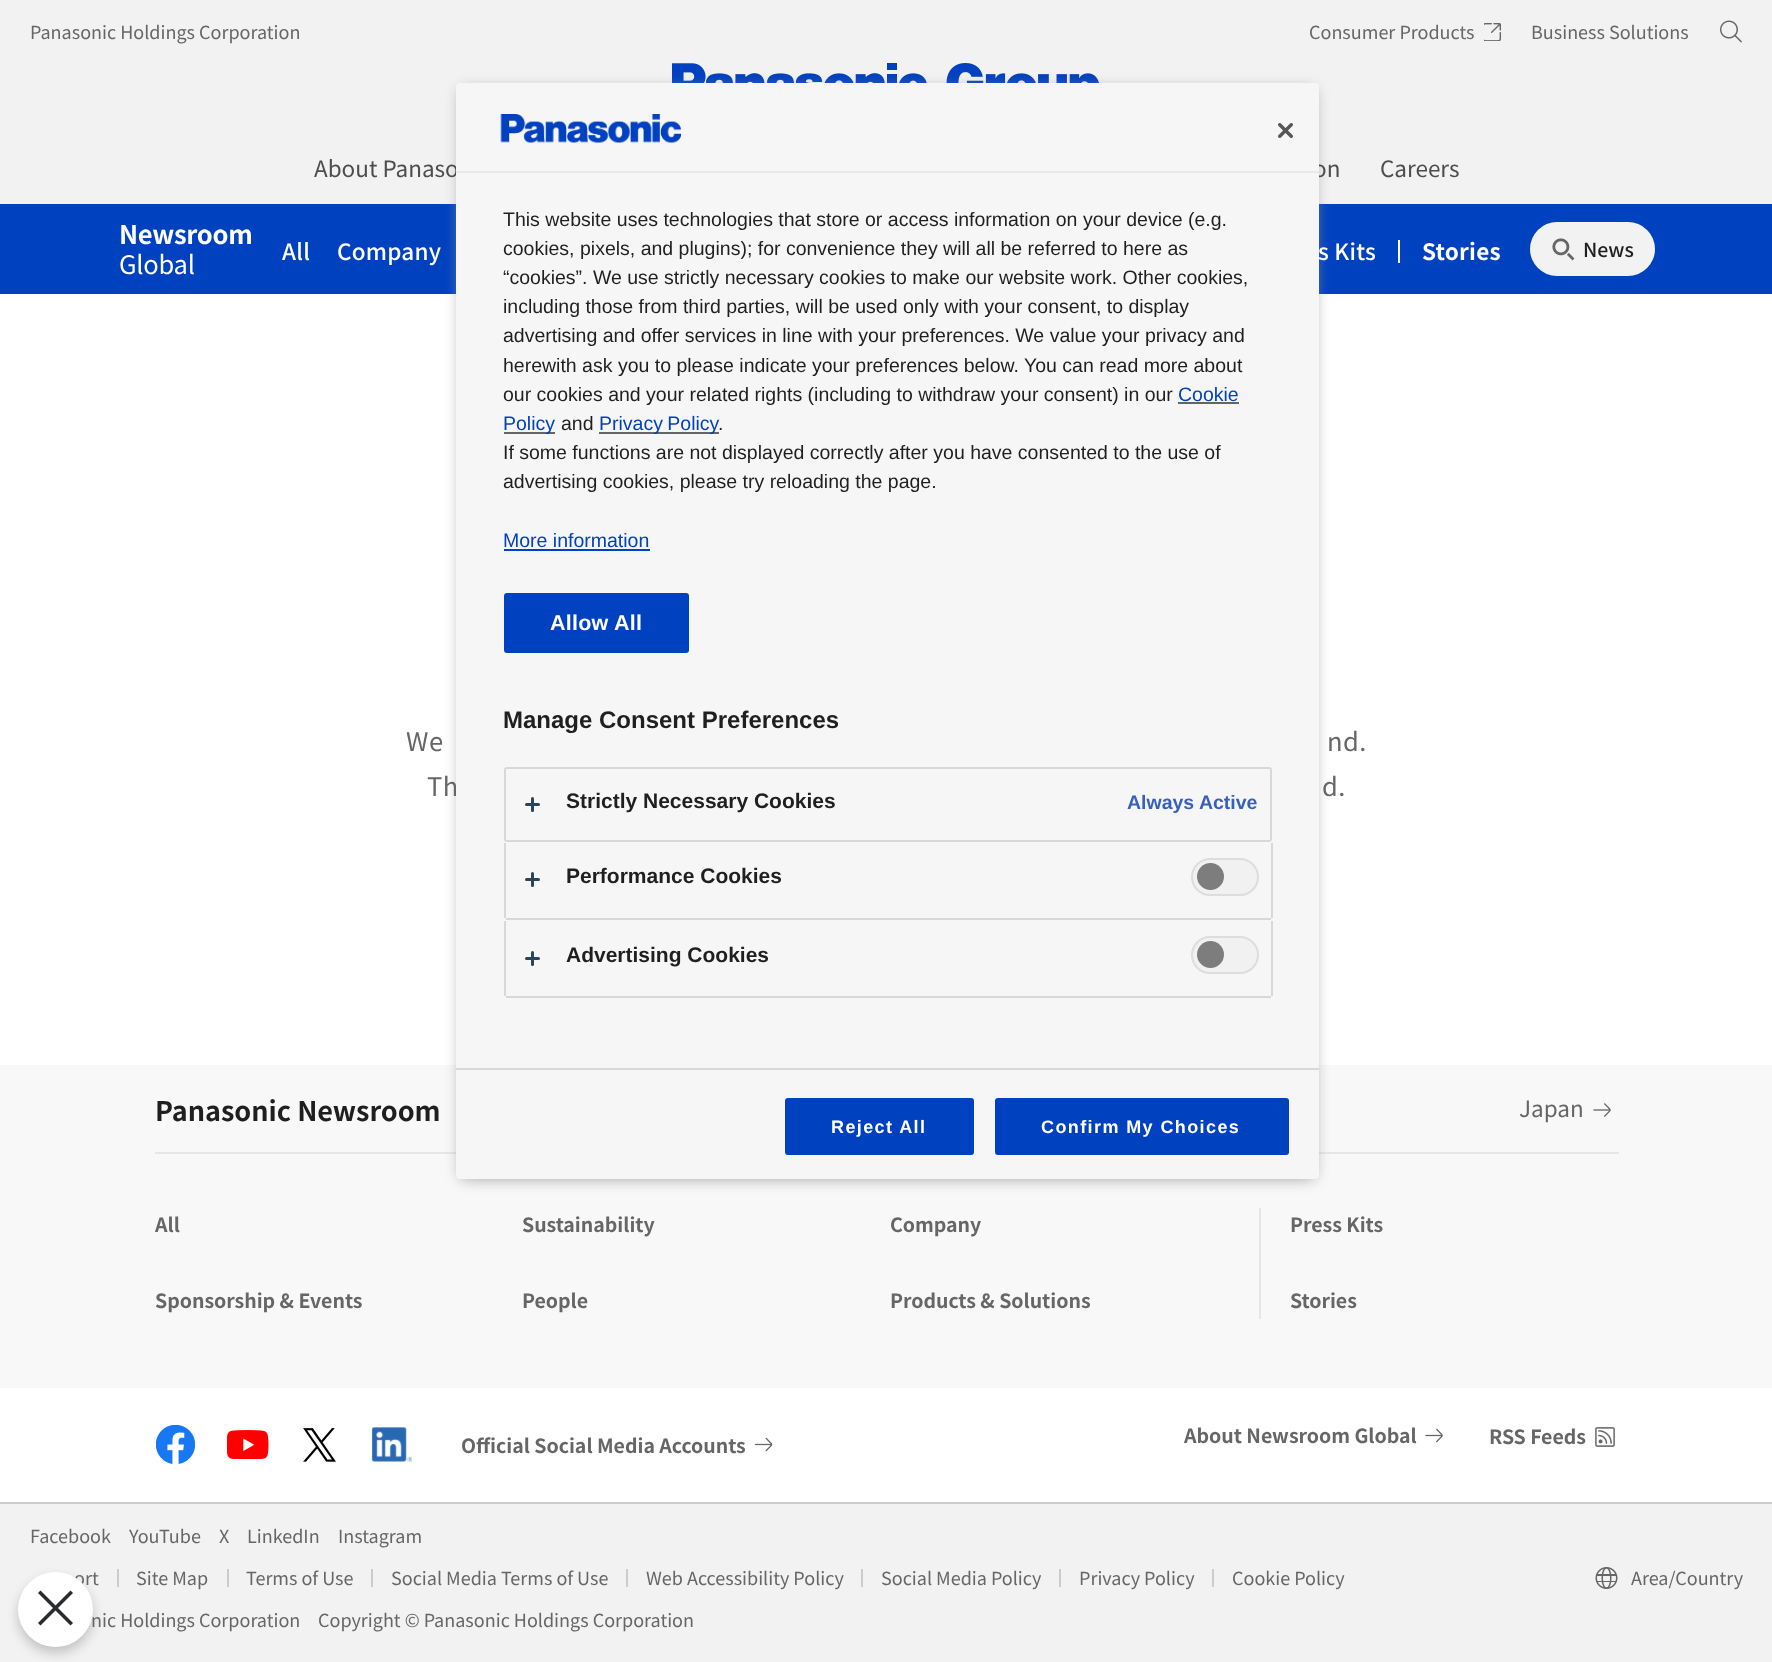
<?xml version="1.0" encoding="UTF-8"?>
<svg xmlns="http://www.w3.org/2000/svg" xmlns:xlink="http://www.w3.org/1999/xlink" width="1772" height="1662">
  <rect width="100%" height="100%" fill="#f2f2f2" />
  <image x="1484" y="23" width="18" height="18" xlink:href="image1.png" />
  <image x="1720" y="20" width="22" height="23" xlink:href="image2.png" />
  <image x="672" y="63" width="427" height="20" xlink:href="image3.png" />
  <rect y="294" width="1772" height="771" fill="#ffffff" />
  <rect y="204" width="1772" height="90" fill="#0041c0" />
  <rect x="1398" y="240" width="2" height="23" fill="#ffffff" />
  <rect x="1530" y="222" width="125" height="54" rx="27" fill="#f2f2f2" />
  <image x="1552" y="238" width="23" height="23" xlink:href="image4.png" />
  <rect y="1065" width="1772" height="323" fill="#f8f8f8" />
  <rect x="155" y="1152" width="1464" height="2" fill="#e6e6e6" />
  <image x="1593" y="1103" width="18" height="14" xlink:href="image5.png" />
  <rect x="1259" y="1208" width="2" height="111" fill="#e6e6e6" />
  <rect y="1388" width="1772" height="114" fill="#ffffff" />
  <image x="156" y="1425" width="39" height="39" xlink:href="image6.png" />
  <image x="227" y="1430" width="42" height="29" xlink:href="image7.png" />
  <image x="303" y="1428" width="33" height="34" xlink:href="image8.png" />
  <image x="371" y="1427" width="41" height="35" xlink:href="image9.png" />
  <image x="754" y="1437" width="19" height="15" xlink:href="image10.png" />
  <image x="1425" y="1428" width="18" height="15" xlink:href="image11.png" />
  <image x="1595" y="1427" width="20" height="20" xlink:href="image12.png" />
  <rect y="1502" width="1772" height="2" fill="#cccccc" />
  <rect x="117" y="1569" width="2" height="18" fill="#cccccc" />
  <rect x="227" y="1569" width="2" height="18" fill="#cccccc" />
  <rect x="371" y="1569" width="2" height="18" fill="#cccccc" />
  <rect x="626" y="1569" width="2" height="18" fill="#cccccc" />
  <rect x="861" y="1569" width="2" height="18" fill="#cccccc" />
  <rect x="1059" y="1569" width="2" height="18" fill="#cccccc" />
  <rect x="1212" y="1569" width="2" height="18" fill="#cccccc" />
  <image x="1595" y="1567" width="23" height="22" xlink:href="image13.png" />
  <rect x="461" y="90" width="853" height="1088" fill="#999999" filter="blur(7.5px)" />
  <rect x="18" y="1578" width="75" height="75" rx="37.5" fill="#000000" fill-opacity="0.2" filter="blur(6px)" />
  <text x="30" y="39" style="font-family: Noto Sans JP; font-size: 18px; fill: #666666">Panasonic Holdings Corporation</text>
  <text x="1309" y="39" style="font-family: Noto Sans JP; font-size: 18px; fill: #666666">Consumer Products</text>
  <text x="1531" y="39" style="font-family: Noto Sans JP; font-size: 18px; fill: #666666">Business Solutions</text>
  <text x="314" y="177" style="font-family: Noto Sans JP; font-size: 22.5px; fill: #4d4d4d">About Panaso</text>
  <text x="1313" y="177" style="font-family: Noto Sans JP; font-size: 22.5px; fill: #4d4d4d">on</text>
  <text x="1380" y="177" style="font-family: Noto Sans JP; font-size: 22.5px; fill: #4d4d4d">Careers</text>
  <text x="119" y="244" style="font-family: Noto Sans JP; font-size: 25.5px; font-weight: bold; letter-spacing: -0.25px; fill: #ffffff">Newsroom</text>
  <text x="119" y="274" style="font-family: Noto Sans JP; font-size: 25.5px; letter-spacing: -0.25px; fill: #ffffff">Global</text>
  <text x="282" y="260" style="font-family: Noto Sans JP; font-size: 22.5px; font-weight: 500; letter-spacing: 0.25px; fill: #ffffff">All</text>
  <text x="337" y="260" style="font-family: Noto Sans JP; font-size: 22.5px; font-weight: 500; letter-spacing: 0.25px; fill: #ffffff">Company</text>
  <text x="1318" y="260" style="font-family: Noto Sans JP; font-size: 22.5px; font-weight: 500; letter-spacing: 0.25px; fill: #ffffff">s Kits</text>
  <text x="1422" y="260" style="font-family: Noto Sans JP; font-size: 22.5px; font-weight: bold; letter-spacing: 0.25px; fill: #ffffff">Stories</text>
  <text x="1583" y="257" style="font-family: Noto Sans JP; font-size: 19.5px; font-weight: 500; fill: #1f1f1f">News</text>
  <text x="406" y="751" style="font-family: Noto Sans JP; font-size: 25.5px; letter-spacing: 0.5px; fill: #666666">We</text>
  <text x="1327" y="751" style="font-family: Noto Sans JP; font-size: 25.5px; letter-spacing: 0.5px; fill: #666666">nd.</text>
  <text x="427" y="796" style="font-family: Noto Sans JP; font-size: 25.5px; letter-spacing: 0.5px; fill: #666666">Th</text>
  <text x="1322" y="796" style="font-family: Noto Sans JP; font-size: 25.5px; letter-spacing: 0.5px; fill: #666666">d.</text>
  <text x="155" y="1121" style="font-family: Noto Sans JP; font-size: 27px; font-weight: bold; fill: #1f1f1f">Panasonic Newsroom</text>
  <text x="1519" y="1117" style="font-family: Noto Sans JP; font-size: 22.5px; fill: #666666">Japan</text>
  <text x="155" y="1232" style="font-family: Noto Sans JP; font-size: 19.5px; font-weight: bold; fill: #666666">All</text>
  <text x="522" y="1232" style="font-family: Noto Sans JP; font-size: 19.5px; font-weight: bold; fill: #666666">Sustainability</text>
  <text x="890" y="1232" style="font-family: Noto Sans JP; font-size: 19.5px; font-weight: bold; fill: #666666">Company</text>
  <text x="155" y="1308" style="font-family: Noto Sans JP; font-size: 19.5px; font-weight: bold; fill: #666666">Sponsorship &amp; Events</text>
  <text x="522" y="1308" style="font-family: Noto Sans JP; font-size: 19.5px; font-weight: bold; fill: #666666">People</text>
  <text x="890" y="1308" style="font-family: Noto Sans JP; font-size: 19.5px; font-weight: bold; fill: #666666">Products &amp; Solutions</text>
  <text x="1290" y="1232" style="font-family: Noto Sans JP; font-size: 19.5px; font-weight: bold; fill: #666666">Press Kits</text>
  <text x="1290" y="1308" style="font-family: Noto Sans JP; font-size: 19.5px; font-weight: bold; fill: #666666">Stories</text>
  <text x="461" y="1453" style="font-family: Noto Sans JP; font-size: 19.5px; font-weight: bold; fill: #666666">Official Social Media Accounts</text>
  <text x="1184" y="1443" style="font-family: Noto Sans JP; font-size: 19.5px; font-weight: bold; fill: #666666">About Newsroom Global</text>
  <text x="1489" y="1444" style="font-family: Noto Sans JP; font-size: 19.5px; font-weight: bold; fill: #666666">RSS Feeds</text>
  <text x="30" y="1543" style="font-family: Noto Sans JP; font-size: 18px; fill: #666666">Facebook</text>
  <text x="129" y="1543" style="font-family: Noto Sans JP; font-size: 18px; fill: #666666">YouTube</text>
  <text x="219" y="1543" style="font-family: Noto Sans JP; font-size: 18px; fill: #666666">X</text>
  <text x="247" y="1543" style="font-family: Noto Sans JP; font-size: 18px; fill: #666666">LinkedIn</text>
  <text x="338" y="1543" style="font-family: Noto Sans JP; font-size: 18px; fill: #666666">Instagram</text>
  <text x="74" y="1585" style="font-family: Noto Sans JP; font-size: 18px; fill: #666666">ort</text>
  <text x="136" y="1585" style="font-family: Noto Sans JP; font-size: 18px; fill: #666666">Site Map</text>
  <text x="246" y="1585" style="font-family: Noto Sans JP; font-size: 18px; fill: #666666">Terms of Use</text>
  <text x="391" y="1585" style="font-family: Noto Sans JP; font-size: 18px; fill: #666666">Social Media Terms of Use</text>
  <text x="646" y="1585" style="font-family: Noto Sans JP; font-size: 18px; fill: #666666">Web Accessibility Policy</text>
  <text x="881" y="1585" style="font-family: Noto Sans JP; font-size: 18px; fill: #666666">Social Media Policy</text>
  <text x="1079" y="1585" style="font-family: Noto Sans JP; font-size: 18px; fill: #666666">Privacy Policy</text>
  <text x="1232" y="1585" style="font-family: Noto Sans JP; font-size: 18px; fill: #666666">Cookie Policy</text>
  <text x="1631" y="1585" style="font-family: Noto Sans JP; font-size: 18px; fill: #666666">Area/Country</text>
  <text x="91" y="1627" style="font-family: Noto Sans JP; font-size: 18px; fill: #666666">nic Holdings Corporation</text>
  <text x="318" y="1627" style="font-family: Noto Sans JP; font-size: 18px; fill: #666666">Copyright © Panasonic Holdings Corporation</text>
  <rect x="456" y="83" width="863" height="1096" rx="4" fill="#f6f6f6" />
  <rect x="456" y="171" width="863" height="2" fill="#e9e9e9" />
  <image x="500" y="114" width="181" height="29" xlink:href="image14.png" />
  <image x="1278" y="123" width="15" height="15" xlink:href="image15.png" />
  <text x="503" y="226" style="font-family: Liberation Sans; font-size: 19.5px; fill: #1f1f1f">This website uses technologies that store or access information on your device (e.g.</text>
  <text x="503" y="255" style="font-family: Liberation Sans; font-size: 19.5px; fill: #1f1f1f">cookies, pixels, and plugins); for convenience they will all be referred to here as</text>
  <text x="503" y="284" style="font-family: Liberation Sans; font-size: 19.5px; fill: #1f1f1f">“cookies”. We use strictly necessary cookies to make our website work. Other cookies,</text>
  <text x="503" y="313" style="font-family: Liberation Sans; font-size: 19.5px; fill: #1f1f1f">including those from third parties, will be used only with your consent, to display</text>
  <text x="503" y="342" style="font-family: Liberation Sans; font-size: 19.5px; fill: #1f1f1f">advertising and offer services in line with your preferences. We value your privacy and</text>
  <text x="503" y="372" style="font-family: Liberation Sans; font-size: 19.5px; fill: #1f1f1f">herewith ask you to please indicate your preferences below. You can read more about</text>
  <text x="503" y="401" style="font-family: Liberation Sans; font-size: 19.5px; fill: #1f1f1f">our cookies and your related rights (including to withdraw your consent) in our</text>
  <text x="1178" y="401" style="font-family: Liberation Sans; font-size: 19.5px; fill: #0041c0">Cookie</text>
  <rect x="1178" y="402" width="61" height="2" fill="#656565" />
  <rect x="504" y="432" width="51" height="2" fill="#656565" />
  <text x="503" y="430" style="font-family: Liberation Sans; font-size: 19.5px; fill: #0041c0">Policy</text>
  <text x="561" y="430" style="font-family: Liberation Sans; font-size: 19.5px; fill: #1f1f1f">and</text>
  <rect x="599" y="432" width="120" height="2" fill="#656565" />
  <text x="599" y="430" word-spacing="-1" style="font-family: Liberation Sans; font-size: 19.5px; fill: #0041c0">Privacy Policy</text>
  <text x="718" y="430" style="font-family: Liberation Sans; font-size: 19.5px; fill: #1f1f1f">.</text>
  <text x="503" y="459" style="font-family: Liberation Sans; font-size: 19.5px; fill: #1f1f1f">If some functions are not displayed correctly after you have consented to the use of</text>
  <text x="503" y="488" style="font-family: Liberation Sans; font-size: 19.5px; fill: #1f1f1f">advertising cookies, please try reloading the page.</text>
  <text x="503" y="547" style="font-family: Liberation Sans; font-size: 19.5px; fill: #0041c0">More information</text>
  <rect x="504" y="549" width="146" height="2" fill="#0041c0" />
  <rect x="505" y="594" width="183" height="58" rx="2" fill="#0041c0" stroke="#0041c0" stroke-width="2" />
  <text x="550" y="630" style="font-family: Liberation Sans; font-size: 21.5px; font-weight: bold; letter-spacing: 0.25px; fill: #ffffff">Allow All</text>
  <text x="503" y="728" style="font-family: Liberation Sans; font-size: 24px; font-weight: bold; fill: #1f1f1f">Manage Consent Preferences</text>
  <rect x="505" y="768" width="766" height="73" rx="2" fill="none" stroke="#d8d8d8" stroke-width="2" />
  <rect x="531" y="797" width="3" height="15" rx="1.5" fill="#27455c" />
  <rect x="525" y="803" width="15" height="3" rx="1.5" fill="#27455c" />
  <text x="566" y="808" style="font-family: Liberation Sans; font-size: 21px; font-weight: bold; fill: #1f1f1f">Strictly Necessary Cookies</text>
  <text x="1127" y="809" style="font-family: Liberation Sans; font-size: 19.5px; font-weight: bold; fill: #3860be">Always Active</text>
  <rect x="1271" y="843" width="2" height="75" fill="#d8d8d8" />
  <rect x="506" y="918" width="765" height="2" fill="#d8d8d8" />
  <rect x="504" y="843" width="2" height="75" fill="#d8d8d8" />
  <rect x="531" y="872" width="3" height="15" rx="1.5" fill="#27455c" />
  <rect x="525" y="878" width="15" height="3" rx="1.5" fill="#27455c" />
  <text x="566" y="883" style="font-family: Liberation Sans; font-size: 21px; font-weight: bold; fill: #1f1f1f">Performance Cookies</text>
  <rect x="1192" y="859" width="66" height="36" rx="18" fill="#f2f1f1" stroke="#dddddd" stroke-width="2" />
  <circle cx="1210.5" cy="876.5" r="13.5" fill="#7d7d7d" />
  <rect x="1271" y="921" width="2" height="75" fill="#d8d8d8" />
  <rect x="506" y="996" width="765" height="2" fill="#d8d8d8" />
  <rect x="504" y="921" width="2" height="75" fill="#d8d8d8" />
  <rect x="531" y="951" width="3" height="15" rx="1.5" fill="#27455c" />
  <rect x="525" y="957" width="15" height="3" rx="1.5" fill="#27455c" />
  <text x="566" y="962" style="font-family: Liberation Sans; font-size: 21px; font-weight: bold; fill: #1f1f1f">Advertising Cookies</text>
  <rect x="1192" y="937" width="66" height="36" rx="18" fill="#f2f1f1" stroke="#dddddd" stroke-width="2" />
  <circle cx="1210.5" cy="954.5" r="13.5" fill="#7d7d7d" />
  <rect x="456" y="1068" width="863" height="2" fill="#d8d8d8" />
  <rect x="786" y="1099" width="187" height="55" rx="2" fill="#0041c0" stroke="#0041c0" stroke-width="2" />
  <text x="831" y="1133" style="font-family: Liberation Sans; font-size: 18px; font-weight: bold; letter-spacing: 1.4px; fill: #ffffff">Reject All</text>
  <rect x="996" y="1099" width="292" height="55" rx="2" fill="#0041c0" stroke="#0041c0" stroke-width="2" />
  <text x="1041" y="1133" style="font-family: Liberation Sans; font-size: 18px; font-weight: bold; letter-spacing: 1.4px; fill: #ffffff">Confirm My Choices</text>
  <circle cx="55.5" cy="1609.5" r="37.5" fill="#ffffff" />
  <path d="M 38 1593 l 32.5 32.5 l 2.5 -2.5 l -32.5 -32.5 z" fill="#292b2e" />
  <path d="M 73 1593 l -32.5 32.5 l -2.5 -2.5 l 32.5 -32.5 z" fill="#292b2e" />
</svg>
